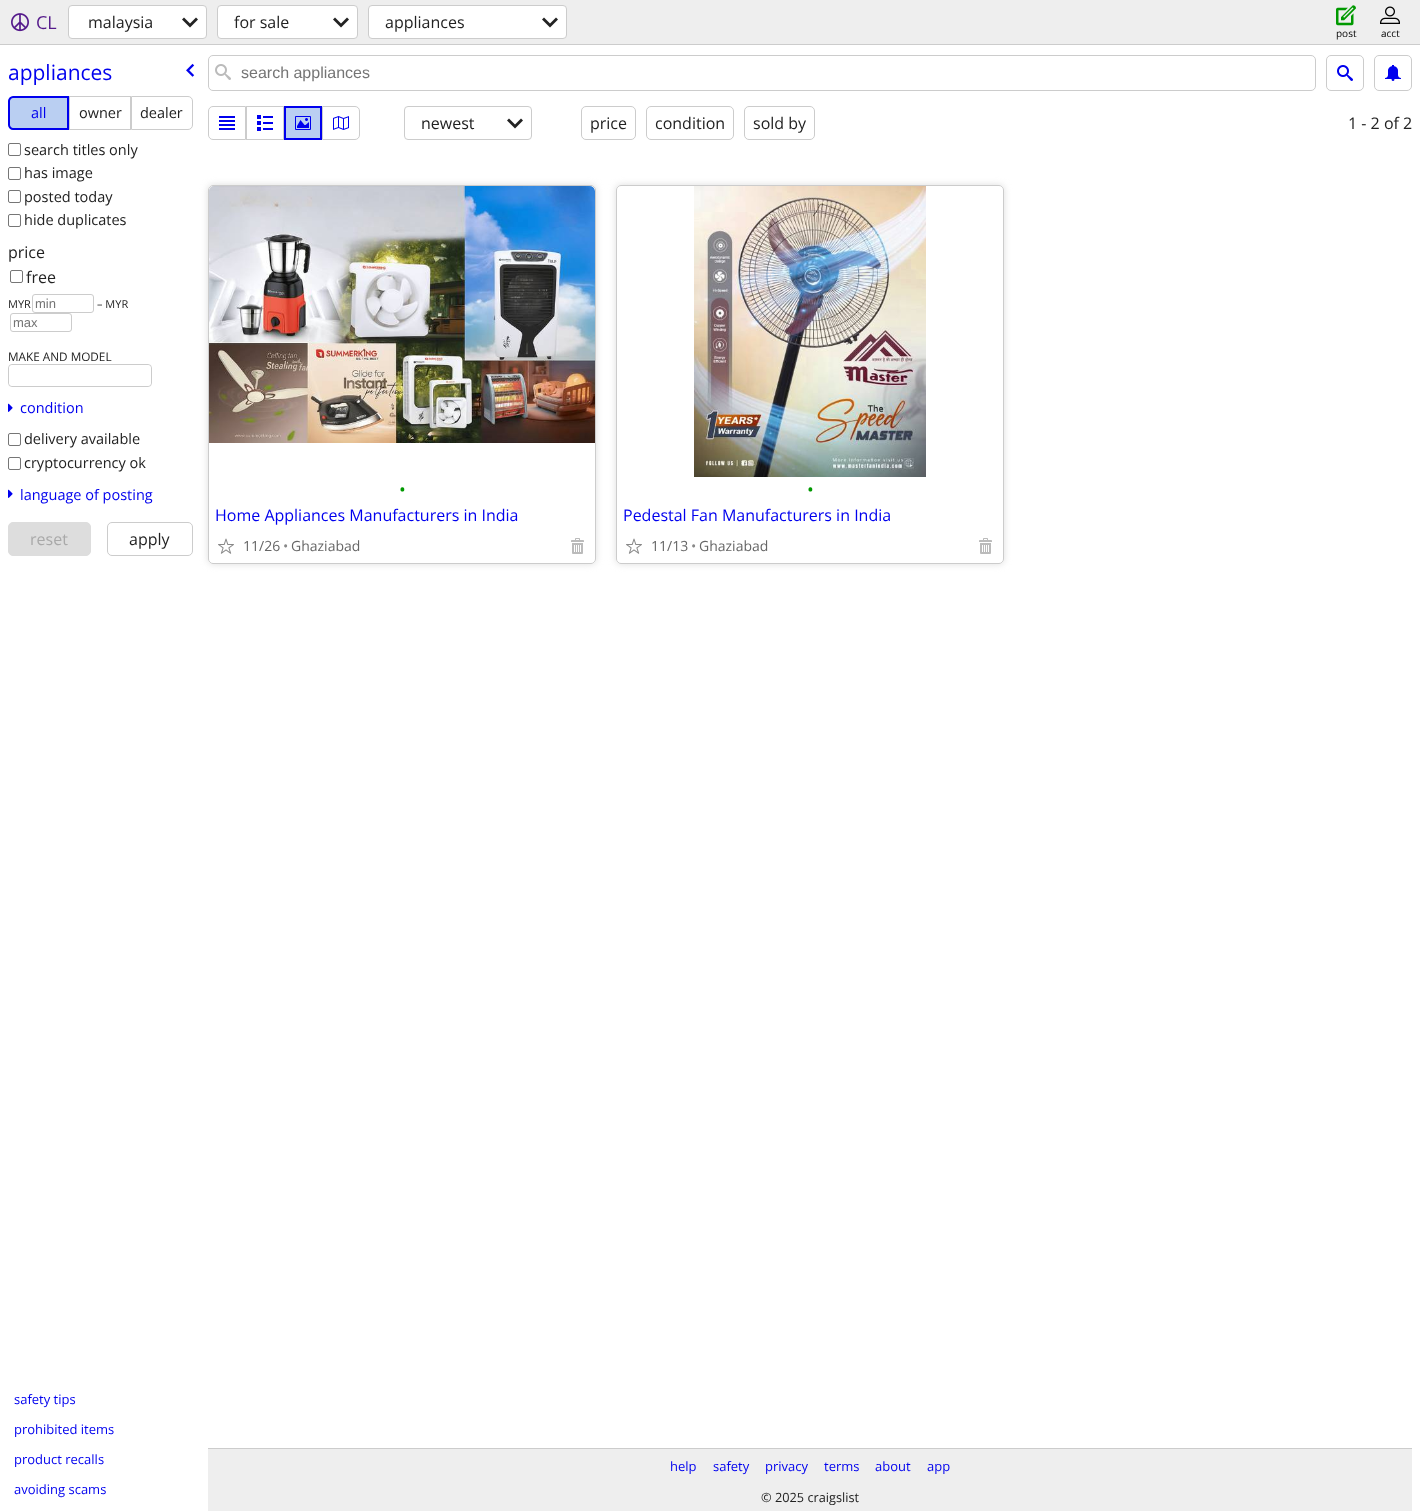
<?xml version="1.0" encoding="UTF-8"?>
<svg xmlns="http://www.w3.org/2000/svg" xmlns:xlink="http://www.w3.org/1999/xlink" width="1420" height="1511">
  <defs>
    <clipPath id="clip1"><rect x="9" y="365" width="142" height="21" rx="3" /></clipPath>
    <clipPath id="clip2"><path d="M 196 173 h 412 v 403 h -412 z m 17 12 h 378 c 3 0 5 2 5 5 v 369 c 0 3 -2 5 -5 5 h -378 c -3 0 -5 -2 -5 -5 v -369 c 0 -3 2 -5 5 -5 z" clip-rule="evenodd" /></clipPath>
    <clipPath id="clip3"><path d="M 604 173 h 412 v 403 h -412 z m 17 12 h 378 c 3 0 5 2 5 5 v 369 c 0 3 -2 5 -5 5 h -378 c -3 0 -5 -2 -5 -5 v -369 c 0 -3 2 -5 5 -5 z" clip-rule="evenodd" /></clipPath>
  </defs>
  <rect width="100%" height="100%" fill="#ffffff" />
  <rect width="1420" height="44" fill="#eeeeee" />
  <rect y="44" width="1420" height="1" fill="#cccccc" />
  <image x="11" y="13" width="18" height="19" xlink:href="image1.png" />
  <rect x="68.5" y="5.5" width="138" height="33" rx="3.5" fill="#ffffff" stroke="#cccccc" />
  <image x="182" y="17" width="16" height="11" xlink:href="image2.png" />
  <rect x="217.5" y="5.5" width="140" height="33" rx="3.5" fill="#ffffff" stroke="#cccccc" />
  <image x="333" y="17" width="16" height="11" xlink:href="image2.png" />
  <rect x="368.5" y="5.5" width="198" height="33" rx="3.5" fill="#ffffff" stroke="#cccccc" />
  <image x="542" y="17" width="16" height="11" xlink:href="image2.png" />
  <image x="1336" y="5" width="20" height="21" xlink:href="image3.png" />
  <image x="1380" y="6" width="20" height="18" xlink:href="image4.png" />
  <image x="186" y="63" width="9" height="14" xlink:href="image5.png" />
  <path d="M 13 97 h 55 v 32 h -55 c -2 0 -4 -2 -4 -4 v -24 c 0 -2 2 -4 4 -4 z" fill="#bacff2" stroke="#0000ee" stroke-width="2" />
  <rect x="69.5" y="96.5" width="61" height="33" fill="none" stroke="#cccccc" />
  <path d="M 131.5 96.5 h 56.5 c 2.5 0 4.5 2 4.5 4.5 v 24 c 0 2.5 -2 4.5 -4.5 4.5 h -56.5 z" fill="none" stroke="#cccccc" />
  <rect x="8.5" y="143.5" width="12" height="12" rx="1.5" fill="none" stroke="#767676" />
  <rect x="8.5" y="167.5" width="12" height="12" rx="1.5" fill="none" stroke="#767676" />
  <rect x="8.5" y="190.5" width="12" height="12" rx="1.5" fill="none" stroke="#767676" />
  <rect x="8.5" y="214.5" width="12" height="12" rx="1.5" fill="none" stroke="#767676" />
  <rect x="10.5" y="270.5" width="12" height="12" rx="1.5" fill="none" stroke="#767676" />
  <rect x="32.5" y="294.5" width="61" height="18" rx="2.5" fill="none" stroke="#cccccc" />
  <rect x="10.5" y="313.5" width="61" height="18" rx="2.5" fill="none" stroke="#cccccc" />
  <rect x="8.5" y="364.5" width="143" height="22" rx="3.5" fill="none" stroke="#cccccc" />
  <g clip-path="url(#clip1)">
    <rect x="9" y="365" width="142" height="21" rx="4" fill="#ffffff" />
  </g>
  <image x="8" y="403" width="5" height="9" xlink:href="image6.png" />
  <rect x="8.5" y="433.5" width="12" height="12" rx="1.5" fill="none" stroke="#767676" />
  <rect x="8.5" y="457.5" width="12" height="12" rx="1.5" fill="none" stroke="#767676" />
  <image x="8" y="489" width="5" height="9" xlink:href="image6.png" />
  <rect x="8.5" y="522.5" width="82" height="33" rx="4.5" fill="#dddddd" stroke="#dddddd" />
  <rect x="107.5" y="522.5" width="85" height="33" rx="4.5" fill="none" stroke="#cccccc" />
  <rect x="208.5" y="55.5" width="1107" height="35" rx="4.5" fill="none" stroke="#cccccc" />
  <image x="215" y="64" width="16" height="16" xlink:href="image7.png" />
  <rect x="1326.5" y="55.5" width="37" height="35" rx="4.5" fill="none" stroke="#cccccc" />
  <image x="1337" y="65" width="16" height="16" xlink:href="image8.png" />
  <rect x="1374.5" y="55.5" width="37" height="35" rx="4.5" fill="none" stroke="#cccccc" />
  <image x="1385" y="65" width="16" height="16" xlink:href="image9.png" />
  <path d="M 213 106.5 h 32.5 v 33 h -32.5 c -2.5 0 -4.5 -2 -4.5 -4.5 v -24 c 0 -2.5 2 -4.5 4.5 -4.5 z" fill="none" stroke="#cccccc" />
  <image x="219" y="116" width="16" height="14" xlink:href="image10.png" />
  <rect x="246.5" y="106.5" width="37" height="33" fill="none" stroke="#cccccc" />
  <image x="257" y="115" width="16" height="16" xlink:href="image11.png" />
  <rect x="285" y="107" width="36" height="32" fill="#bacff2" stroke="#0000ee" stroke-width="2" />
  <image x="295" y="116" width="16" height="14" xlink:href="image12.png" />
  <path d="M 322.5 106.5 h 32.5 c 2.5 0 4.5 2 4.5 4.5 v 24 c 0 2.5 -2 4.5 -4.5 4.5 h -32.5 z" fill="none" stroke="#cccccc" />
  <image x="333" y="116" width="16" height="14" xlink:href="image13.png" />
  <rect x="404.5" y="106.5" width="127" height="33" rx="3.5" fill="none" stroke="#cccccc" />
  <image x="507" y="118" width="16" height="11" xlink:href="image2.png" />
  <rect x="581.5" y="106.5" width="54" height="33" rx="4.5" fill="none" stroke="#cccccc" />
  <rect x="646.5" y="106.5" width="87" height="33" rx="4.5" fill="none" stroke="#cccccc" />
  <rect x="744.5" y="106.5" width="70" height="33" rx="4.5" fill="none" stroke="#cccccc" />
  <g clip-path="url(#clip2)">
    <rect x="208" y="185" width="388" height="379" rx="5" fill="#dddddd" filter="blur(3.5px)" />
  </g>
  <rect x="208.5" y="185.5" width="387" height="378" rx="4.5" fill="none" stroke="#cccccc" />
  <image x="209" y="186" width="386" height="257" xlink:href="image14.png" />
  <image x="218" y="538" width="16" height="16" xlink:href="image15.png" />
  <image x="571" y="538" width="13" height="16" xlink:href="image16.png" />
  <g clip-path="url(#clip3)">
    <rect x="616" y="185" width="388" height="379" rx="5" fill="#dddddd" filter="blur(3.5px)" />
  </g>
  <rect x="616.5" y="185.5" width="387" height="378" rx="4.5" fill="none" stroke="#cccccc" />
  <image x="694" y="186" width="232" height="291" xlink:href="image17.png" />
  <image x="626" y="538" width="16" height="16" xlink:href="image15.png" />
  <image x="979" y="538" width="13" height="16" xlink:href="image16.png" />
  <rect x="208" y="1449" width="1204" height="62" fill="#eeeeee" />
  <rect x="208" y="1448" width="1204" height="1" fill="#cccccc" />
  <text x="36" y="29" style="font-family: Open Sans; font-size: 18px; fill: #551a8b">CL</text>
  <text x="88" y="28" style="font-family: Open Sans; font-size: 16px; fill: #222222">malaysia</text>
  <text x="234" y="28" style="font-family: Open Sans; font-size: 16px; fill: #222222">for sale</text>
  <text x="385" y="28" style="font-family: Open Sans; font-size: 16px; fill: #222222">appliances</text>
  <text x="1336" y="37" style="font-family: Open Sans; font-size: 10px; fill: #000000">post</text>
  <text x="1381" y="37" style="font-family: Open Sans; font-size: 10px; fill: #000000">acct</text>
  <text x="8" y="80" style="font-family: Open Sans; font-size: 21px; fill: #0000ee">appliances</text>
  <text x="31" y="118" style="font-family: Open Sans; font-size: 14.5px; fill: #0000ee">all</text>
  <text x="79" y="118" style="font-family: Open Sans; font-size: 14.5px; fill: #222222">owner</text>
  <text x="140" y="118" style="font-family: Open Sans; font-size: 14.5px; fill: #222222">dealer</text>
  <text x="24" y="155" style="font-family: Open Sans; font-size: 14.5px; fill: #222222">search titles only</text>
  <text x="24" y="178" style="font-family: Open Sans; font-size: 14.5px; fill: #222222">has image</text>
  <text x="24" y="202" style="font-family: Open Sans; font-size: 14.5px; fill: #222222">posted today</text>
  <text x="24" y="225" style="font-family: Open Sans; font-size: 14.5px; fill: #222222">hide duplicates</text>
  <text x="8" y="258" style="font-family: Open Sans; font-size: 16px; fill: #222222">price</text>
  <text x="26" y="283" style="font-family: Open Sans; font-size: 16px; fill: #222222">free</text>
  <text x="8" y="308" style="font-family: Open Sans; font-size: 11px; fill: #222222">MYR</text>
  <text x="35" y="308" style="font-family: Liberation Sans; font-size: 13px; fill: #757575">min</text>
  <text x="97" y="308" style="font-family: Open Sans; font-size: 11px; fill: #222222">– MYR</text>
  <text x="13" y="327" style="font-family: Liberation Sans; font-size: 13px; fill: #757575">max</text>
  <text x="8" y="361" style="font-family: Open Sans; font-size: 11.75px; fill: #222222">MAKE AND MODEL</text>
  <text x="20" y="413" style="font-family: Open Sans; font-size: 14.5px; fill: #0000ee">condition</text>
  <text x="24" y="444" style="font-family: Open Sans; font-size: 14.5px; fill: #222222">delivery available</text>
  <text x="24" y="468" style="font-family: Open Sans; font-size: 14.5px; fill: #222222">cryptocurrency ok</text>
  <text x="20" y="500" style="font-family: Open Sans; font-size: 14.5px; fill: #0000ee">language of posting</text>
  <text x="30" y="545" style="font-family: Open Sans; font-size: 16px; fill: #a9a9a9">reset</text>
  <text x="129" y="545" style="font-family: Open Sans; font-size: 16px; fill: #222222">apply</text>
  <text x="14" y="1404" style="font-family: Open Sans; font-size: 13px; fill: #0000ee">safety tips</text>
  <text x="14" y="1434" style="font-family: Open Sans; font-size: 13px; fill: #0000ee">prohibited items</text>
  <text x="14" y="1464" style="font-family: Open Sans; font-size: 13px; fill: #0000ee">product recalls</text>
  <text x="14" y="1494" style="font-family: Open Sans; font-size: 13px; fill: #0000ee">avoiding scams</text>
  <text x="241" y="78" style="font-family: Liberation Sans; font-size: 16px; fill: #757575">search appliances</text>
  <text x="421" y="129" style="font-family: Open Sans; font-size: 16px; fill: #222222">newest</text>
  <text x="590" y="129" style="font-family: Open Sans; font-size: 16px; fill: #222222">price</text>
  <text x="655" y="129" style="font-family: Open Sans; font-size: 16px; fill: #222222">condition</text>
  <text x="753" y="129" style="font-family: Open Sans; font-size: 16px; fill: #222222">sold by</text>
  <text x="1348" y="129" style="font-family: Open Sans; font-size: 16px; fill: #222222">1 - 2 of 2</text>
  <text x="399" y="496" style="font-family: Open Sans; font-size: 18px; fill: #009900">•</text>
  <text x="215" y="521" style="font-family: Open Sans; font-size: 16px; fill: #0000ee">Home Appliances Manufacturers in India</text>
  <text x="243" y="551" style="font-family: Open Sans; font-size: 14px; fill: #666666">11/26</text>
  <text x="283" y="551" style="font-family: Open Sans; font-size: 14px; fill: #888888">•</text>
  <text x="291" y="551" style="font-family: Open Sans; font-size: 14px; fill: #666666">Ghaziabad</text>
  <text x="807" y="496" style="font-family: Open Sans; font-size: 18px; fill: #009900">•</text>
  <text x="623" y="521" style="font-family: Open Sans; font-size: 16px; fill: #0000ee">Pedestal Fan Manufacturers in India</text>
  <text x="651" y="551" style="font-family: Open Sans; font-size: 14px; fill: #666666">11/13</text>
  <text x="691" y="551" style="font-family: Open Sans; font-size: 14px; fill: #888888">•</text>
  <text x="699" y="551" style="font-family: Open Sans; font-size: 14px; fill: #666666">Ghaziabad</text>
  <text x="670" y="1471" style="font-family: Open Sans; font-size: 13px; fill: #0000ee">help</text>
  <text x="713" y="1471" style="font-family: Open Sans; font-size: 13px; fill: #0000ee">safety</text>
  <text x="765" y="1471" style="font-family: Open Sans; font-size: 13px; fill: #0000ee">privacy</text>
  <text x="824" y="1471" style="font-family: Open Sans; font-size: 13px; fill: #0000ee">terms</text>
  <text x="875" y="1471" style="font-family: Open Sans; font-size: 13px; fill: #0000ee">about</text>
  <text x="927" y="1471" style="font-family: Open Sans; font-size: 13px; fill: #0000ee">app</text>
  <text x="761" y="1502" style="font-family: Open Sans; font-size: 12.75px; fill: #222222">© 2025 craigslist</text>
</svg>
